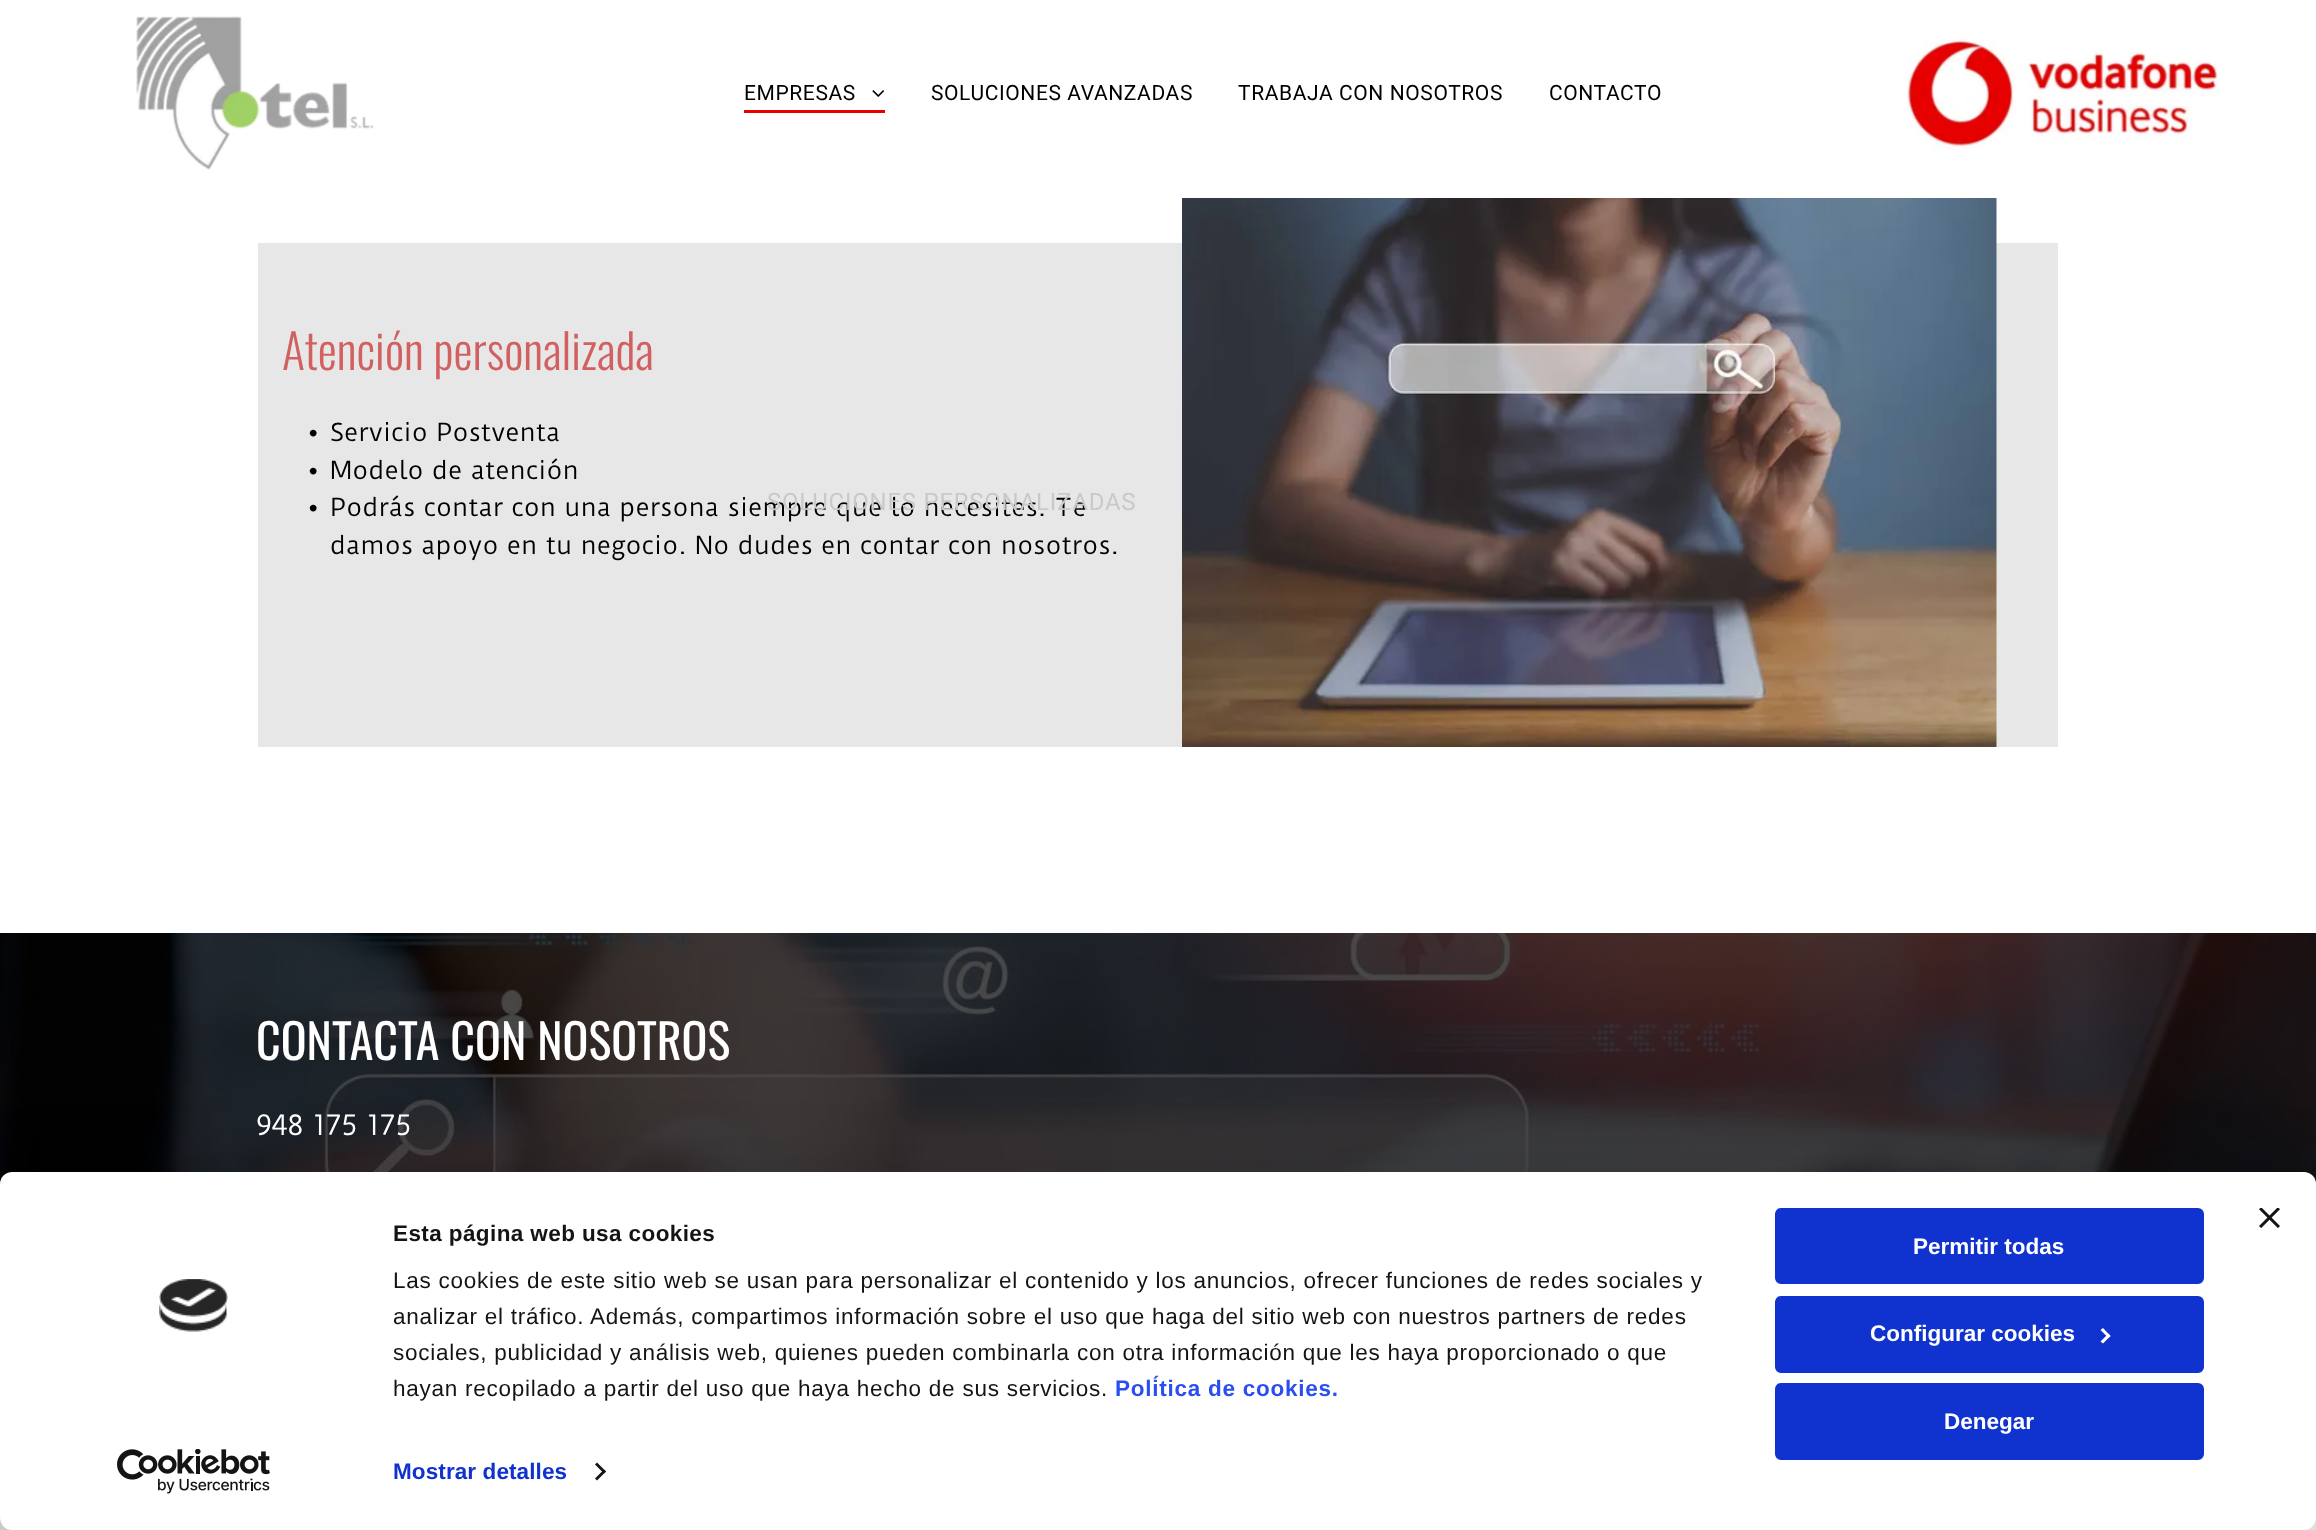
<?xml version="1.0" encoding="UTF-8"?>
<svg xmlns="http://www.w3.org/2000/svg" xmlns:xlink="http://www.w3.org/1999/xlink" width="2316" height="1530">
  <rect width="100%" height="100%" fill="#ffffff" />
  <rect x="258" y="243" width="1800" height="504" fill="#e7e7e7" />
  <image x="1182" y="198" width="815" height="549" xlink:href="image1.png" />
  <image x="0" y="933" width="2316" height="251" xlink:href="image2.png" />
  <rect y="1518" width="12" height="12" fill="#e7e7e7" />
  <image x="136" y="16" width="238" height="154" xlink:href="image3.png" />
  <image x="872" y="90" width="12" height="7" xlink:href="image4.png" />
  <rect x="744" y="110" width="141" height="3" fill="#e60000" />
  <image x="1907" y="39" width="312" height="111" xlink:href="image5.png" />
  <rect y="1217" width="2316" height="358" rx="12" fill="#000000" fill-opacity="0.3" filter="blur(52.5px)" />
  <rect y="1172" width="2316" height="358" rx="12" fill="#ffffff" />
  <image x="2259" y="1208" width="21" height="20" xlink:href="image6.png" />
  <image x="159" y="1279" width="69" height="53" xlink:href="image7.png" />
  <image x="117" y="1449" width="153" height="45" xlink:href="image8.png" />
  <path d="M 597 1462.5 l 9 9 l -2 2 l -9 -9 z" fill="#141414" />
  <path d="M 604 1469.5 l 2 2 l -9 9 l -2 -2 z" fill="#141414" />
  <rect x="1776.5" y="1209.5" width="426" height="73" rx="4.5" fill="#1032cf" stroke="#1032cf" stroke-width="3" />
  <rect x="1776.5" y="1297.5" width="426" height="74" rx="4.5" fill="#1032cf" stroke="#1032cf" stroke-width="3" />
  <path d="M 2103 1328 l 7.5 8 l -2 2 l -8 -8 z" fill="#ffffff" />
  <path d="M 2108.5 1333.5 l 2 2.5 l -7.5 7.5 l -2.5 -2 z" fill="#ffffff" />
  <rect x="1776.5" y="1384.5" width="426" height="74" rx="4.5" fill="#1032cf" stroke="#1032cf" stroke-width="3" />
  <text x="282" y="370" style="font-family: Oswald; font-size: 48px; font-weight: 300; fill: #d26060">Atención personalizada</text>
  <text x="309" y="441" style="font-family: Liberation Sans; font-size: 24px; font-weight: bold; letter-spacing: 0.25px; fill: #000000">•</text>
  <text x="330" y="441" style="font-family: Duru Sans; font-size: 24px; letter-spacing: 0.25px; fill: #000000">Servicio Postventa</text>
  <text x="309" y="479" style="font-family: Liberation Sans; font-size: 24px; font-weight: bold; letter-spacing: 0.25px; fill: #000000">•</text>
  <text x="330" y="479" style="font-family: Duru Sans; font-size: 24px; letter-spacing: 0.25px; fill: #000000">Modelo de atención</text>
  <text x="309" y="516" style="font-family: Liberation Sans; font-size: 24px; font-weight: bold; letter-spacing: 0.25px; fill: #000000">•</text>
  <text x="330" y="516" style="font-family: Duru Sans; font-size: 24px; letter-spacing: 0.25px; fill: #000000">Podrás contar con una persona siempre que lo necesites. Te</text>
  <text x="330" y="554" style="font-family: Duru Sans; font-size: 24px; letter-spacing: 0.25px; fill: #000000">damos apoyo en tu negocio. No dudes en contar con nosotros.</text>
  <text x="256" y="1060" style="font-family: Oswald; font-size: 48px; fill: #ffffff">CONTACTA CON NOSOTROS</text>
  <text x="256" y="1135" style="font-family: Duru Sans; font-size: 27px; fill: #ffffff">948 175 175</text>
  <text x="744" y="100" style="font-family: Roboto; font-size: 21px; letter-spacing: 0.6px; fill: #000000">EMPRESAS</text>
  <text x="767" y="510" style="font-family: Roboto; font-size: 24px; letter-spacing: 0.75px; fill: #c9c9c9">SOLUCIONES PERSONALIZADAS</text>
  <text x="931" y="100" style="font-family: Roboto; font-size: 21px; letter-spacing: 0.6px; fill: #000000">SOLUCIONES AVANZADAS</text>
  <text x="1238" y="100" style="font-family: Roboto; font-size: 21px; letter-spacing: 0.6px; fill: #000000">TRABAJA CON NOSOTROS</text>
  <text x="1549" y="100" style="font-family: Roboto; font-size: 21px; letter-spacing: 0.6px; fill: #000000">CONTACTO</text>
  <text x="393" y="1241" style="font-family: Liberation Sans; font-size: 22.5px; font-weight: bold; letter-spacing: 0.4px; fill: #141414">Esta página web usa cookies</text>
  <text x="393" y="1288" style="font-family: Liberation Sans; font-size: 22.5px; letter-spacing: 0.75px; fill: #141414">Las cookies de este sitio web se usan para personalizar el contenido y los anuncios, ofrecer funciones de redes sociales y</text>
  <text x="393" y="1324" style="font-family: Liberation Sans; font-size: 22.5px; letter-spacing: 0.75px; fill: #141414">analizar el tráfico. Además, compartimos información sobre el uso que haga del sitio web con nuestros partners de redes</text>
  <text x="393" y="1360" style="font-family: Liberation Sans; font-size: 22.5px; letter-spacing: 0.75px; fill: #141414">sociales, publicidad y análisis web, quienes pueden combinarla con otra información que les haya proporcionado o que</text>
  <text x="393" y="1396" style="font-family: Liberation Sans; font-size: 22.5px; letter-spacing: 0.75px; fill: #141414">hayan recopilado a partir del uso que haya hecho de sus servicios.</text>
  <text x="1115" y="1396" style="font-family: Liberation Sans; font-size: 22.5px; font-weight: bold; letter-spacing: 0.75px; fill: #2a4eef">Política de cookies.</text>
  <text x="393" y="1479" style="font-family: Liberation Sans; font-size: 22.5px; font-weight: bold; letter-spacing: 0.1px; fill: #1032cf">Mostrar detalles</text>
  <text x="1913" y="1254" style="font-family: Liberation Sans; font-size: 22.5px; font-weight: bold; fill: #ffffff">Permitir todas</text>
  <text x="1870" y="1341" style="font-family: Liberation Sans; font-size: 22.5px; font-weight: bold; fill: #ffffff">Configurar cookies</text>
  <text x="1944" y="1429" style="font-family: Liberation Sans; font-size: 22.5px; font-weight: bold; fill: #ffffff">Denegar</text>
</svg>
